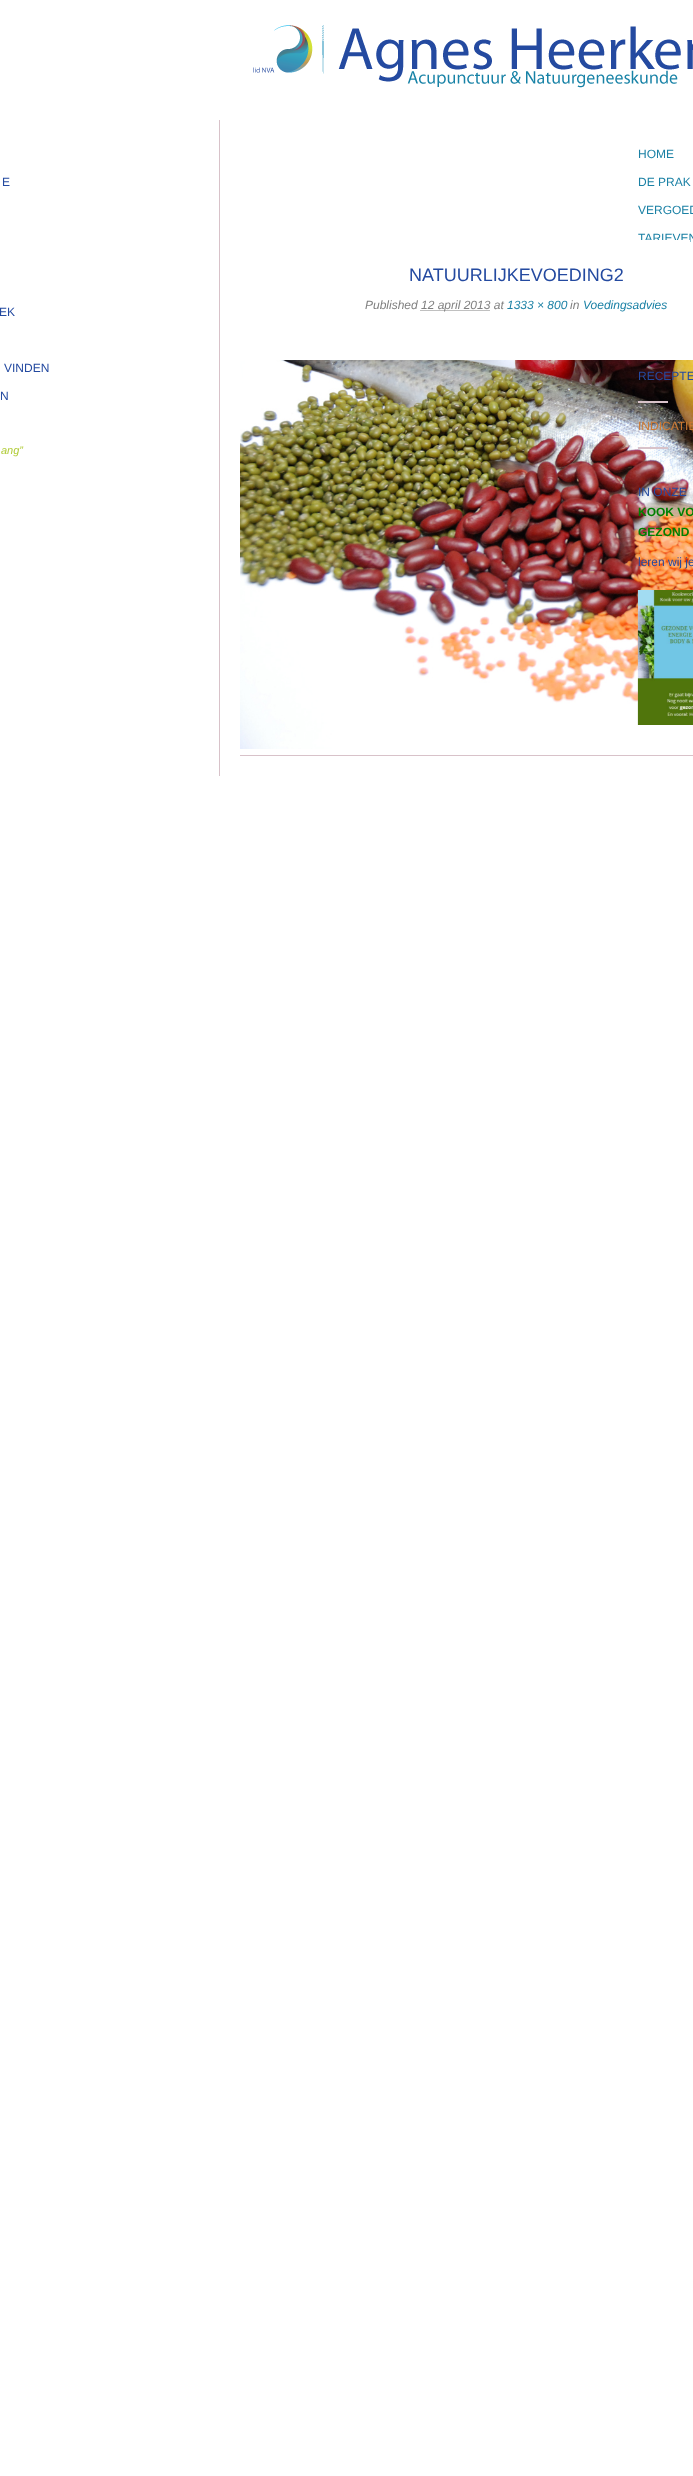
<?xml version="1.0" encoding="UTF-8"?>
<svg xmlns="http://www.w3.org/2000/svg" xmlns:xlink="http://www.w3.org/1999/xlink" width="693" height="2476">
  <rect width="100%" height="100%" fill="#ffffff" />
  <image x="253" y="25" width="440" height="63" xlink:href="image1.png" />
  <image x="240" y="360" width="453" height="389" xlink:href="image3.png" />
  <rect x="638" y="401" width="30" height="2" fill="#d8c2c9" />
  <rect x="638" y="447" width="30" height="2" fill="#d8c2c9" />
  <image x="637" y="590" width="56" height="135" xlink:href="image2.png" />
  <rect x="219" y="120" width="1" height="656" fill="#d8c2c9" />
  <path d="M 420.5 310.5 h 69.5" fill="none" stroke="#808080" stroke-dasharray="1 1" />
  <rect x="240" y="755" width="453" height="1" fill="#d8c2c9" />
  <text x="2" y="186" style="font-family: Liberation Sans; font-size: 12px; fill: #244aa0">E</text>
  <text x="-1" y="316" style="font-family: Liberation Sans; font-size: 12px; fill: #244aa0">EK</text>
  <text x="4" y="372" style="font-family: Liberation Sans; font-size: 12px; fill: #244aa0">VINDEN</text>
  <text x="0" y="400" style="font-family: Liberation Sans; font-size: 12px; fill: #244aa0">N</text>
  <text x="1" y="454" style="font-family: Liberation Sans; font-size: 11px; font-style: italic; fill: #b0cb36">ang”</text>
  <text x="638" y="158" style="font-family: Liberation Sans; font-size: 12px; fill: #1b81a5">HOME</text>
  <text x="638" y="186" style="font-family: Liberation Sans; font-size: 12px; fill: #1b81a5">DE PRAK</text>
  <text x="638" y="214" style="font-family: Liberation Sans; font-size: 12px; fill: #1b81a5">VERGOED</text>
  <text x="638" y="242" style="font-family: Liberation Sans; font-size: 12px; fill: #1b81a5">TARIEVEN</text>
  <text x="638" y="380" style="font-family: Liberation Sans; font-size: 12px; fill: #244aa0">RECEPTE</text>
  <text x="638" y="430" style="font-family: Liberation Sans; font-size: 12px; fill: #cf7a32">INDICATIE</text>
  <text x="638" y="496" style="font-family: Liberation Sans; font-size: 12px; fill: #244aa0">IN ONZE</text>
  <text x="638" y="516" style="font-family: Liberation Sans; font-size: 12px; font-weight: bold; fill: #008000">KOOK VO</text>
  <text x="638" y="536" style="font-family: Liberation Sans; font-size: 12px; font-weight: bold; fill: #008000">GEZOND</text>
  <text x="638" y="566" style="font-family: Liberation Sans; font-size: 12px; fill: #244aa0">leren wij je</text>
  <rect x="640" y="240" width="50" height="2" fill="#ffffff" />
  <text x="409" y="281" style="font-family: Liberation Sans; font-size: 18px; fill: #244aa0">NATUURLIJKEVOEDING2</text>
  <text x="365" y="309" style="font-family: Liberation Sans; font-size: 12px; font-style: italic; fill: #808080">Published</text>
  <text x="421" y="309" style="font-family: Liberation Sans; font-size: 12px; font-style: italic; fill: #808080">12 april 2013 at</text>
  <text x="507" y="309" style="font-family: Liberation Sans; font-size: 12px; font-style: italic; fill: #1b81a5">1333 × 800</text>
  <text x="570" y="309" style="font-family: Liberation Sans; font-size: 12px; font-style: italic; fill: #808080">in</text>
  <text x="583" y="309" style="font-family: Liberation Sans; font-size: 12px; font-style: italic; fill: #1b81a5">Voedingsadvies</text>
</svg>
